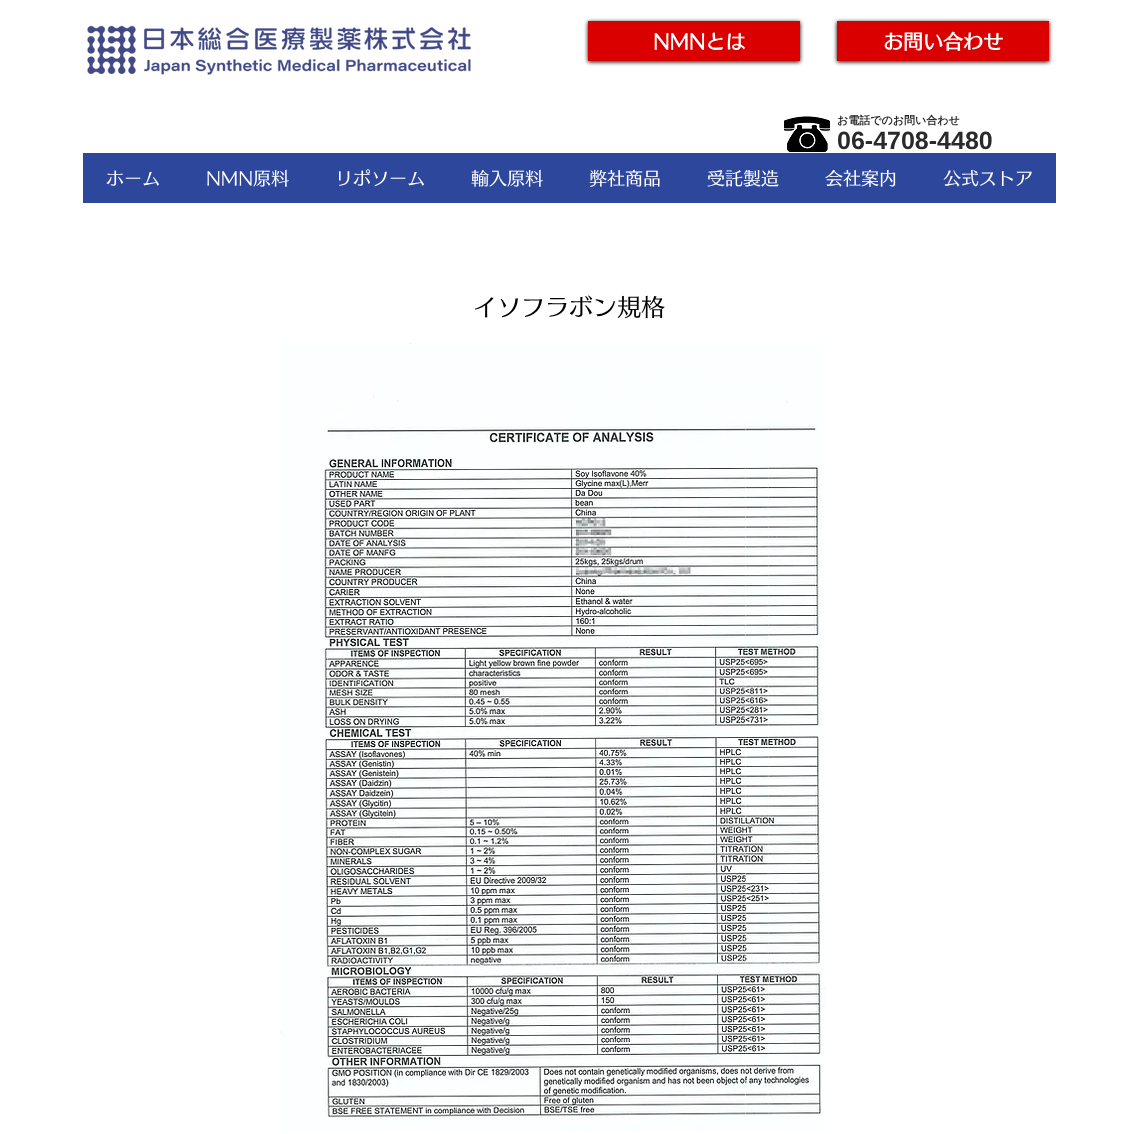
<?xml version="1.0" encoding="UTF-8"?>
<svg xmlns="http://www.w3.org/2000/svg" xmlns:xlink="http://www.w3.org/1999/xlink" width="1145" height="1134">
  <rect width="100%" height="100%" fill="#ffffff" />
  <image x="87" y="25" width="385" height="50" xlink:href="image1.png" />
  <rect x="588" y="22" width="212" height="40" fill="#000000" filter="blur(2px)" />
  <rect x="588" y="21" width="212" height="40" fill="#db0000" />
  <rect x="837" y="22" width="212" height="40" fill="#000000" filter="blur(2px)" />
  <rect x="837" y="21" width="212" height="40" fill="#db0000" />
  <image x="784" y="115" width="46" height="37" xlink:href="image2.png" />
  <rect x="83" y="153" width="973" height="50" fill="#2d479c" />
  <image x="280" y="343" width="546" height="788" xlink:href="image3.png" />
  <text x="653" y="49" style="font-family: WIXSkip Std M; font-size: 20px; font-weight: bold; fill: #ffffff">NMNとは</text>
  <text x="883" y="49" style="font-family: WIXSkip Std M; font-size: 20px; font-weight: bold; fill: #ffffff">お問い合わせ</text>
  <text x="837" y="124" style="font-family: WenQuanYi Zen Hei; font-size: 11px; font-weight: bold; fill: #2a2a2a">お電話でのお問い合わせ</text>
  <text x="837" y="149" style="font-family: Liberation Sans; font-size: 25px; font-weight: bold; fill: #2a2a2a">06-4708-4480</text>
  <text x="106" y="185" style="font-family: WIXSkip Std M; font-size: 18px; font-weight: 500; fill: #ffffff">ホーム</text>
  <text x="206" y="185" style="font-family: WIXSkip Std M; font-size: 18px; font-weight: 500; fill: #ffffff">NMN原料</text>
  <text x="335" y="185" style="font-family: WIXSkip Std M; font-size: 18px; font-weight: 500; fill: #ffffff">リポソーム</text>
  <text x="471" y="185" style="font-family: WIXSkip Std M; font-size: 18px; font-weight: 500; fill: #ffffff">輸入原料</text>
  <text x="589" y="185" style="font-family: WIXSkip Std M; font-size: 18px; font-weight: 500; fill: #ffffff">弊社商品</text>
  <text x="707" y="185" style="font-family: WIXSkip Std M; font-size: 18px; font-weight: 500; fill: #ffffff">受託製造</text>
  <text x="825" y="185" style="font-family: WIXSkip Std M; font-size: 18px; font-weight: 500; fill: #ffffff">会社案内</text>
  <text x="943" y="185" style="font-family: WIXSkip Std M; font-size: 18px; font-weight: 500; fill: #ffffff">公式ストア</text>
  <text x="473" y="316" style="font-family: WIXSkip Std M; font-size: 24px; font-weight: 500; fill: #000000">イソフラボン規格</text>
</svg>
